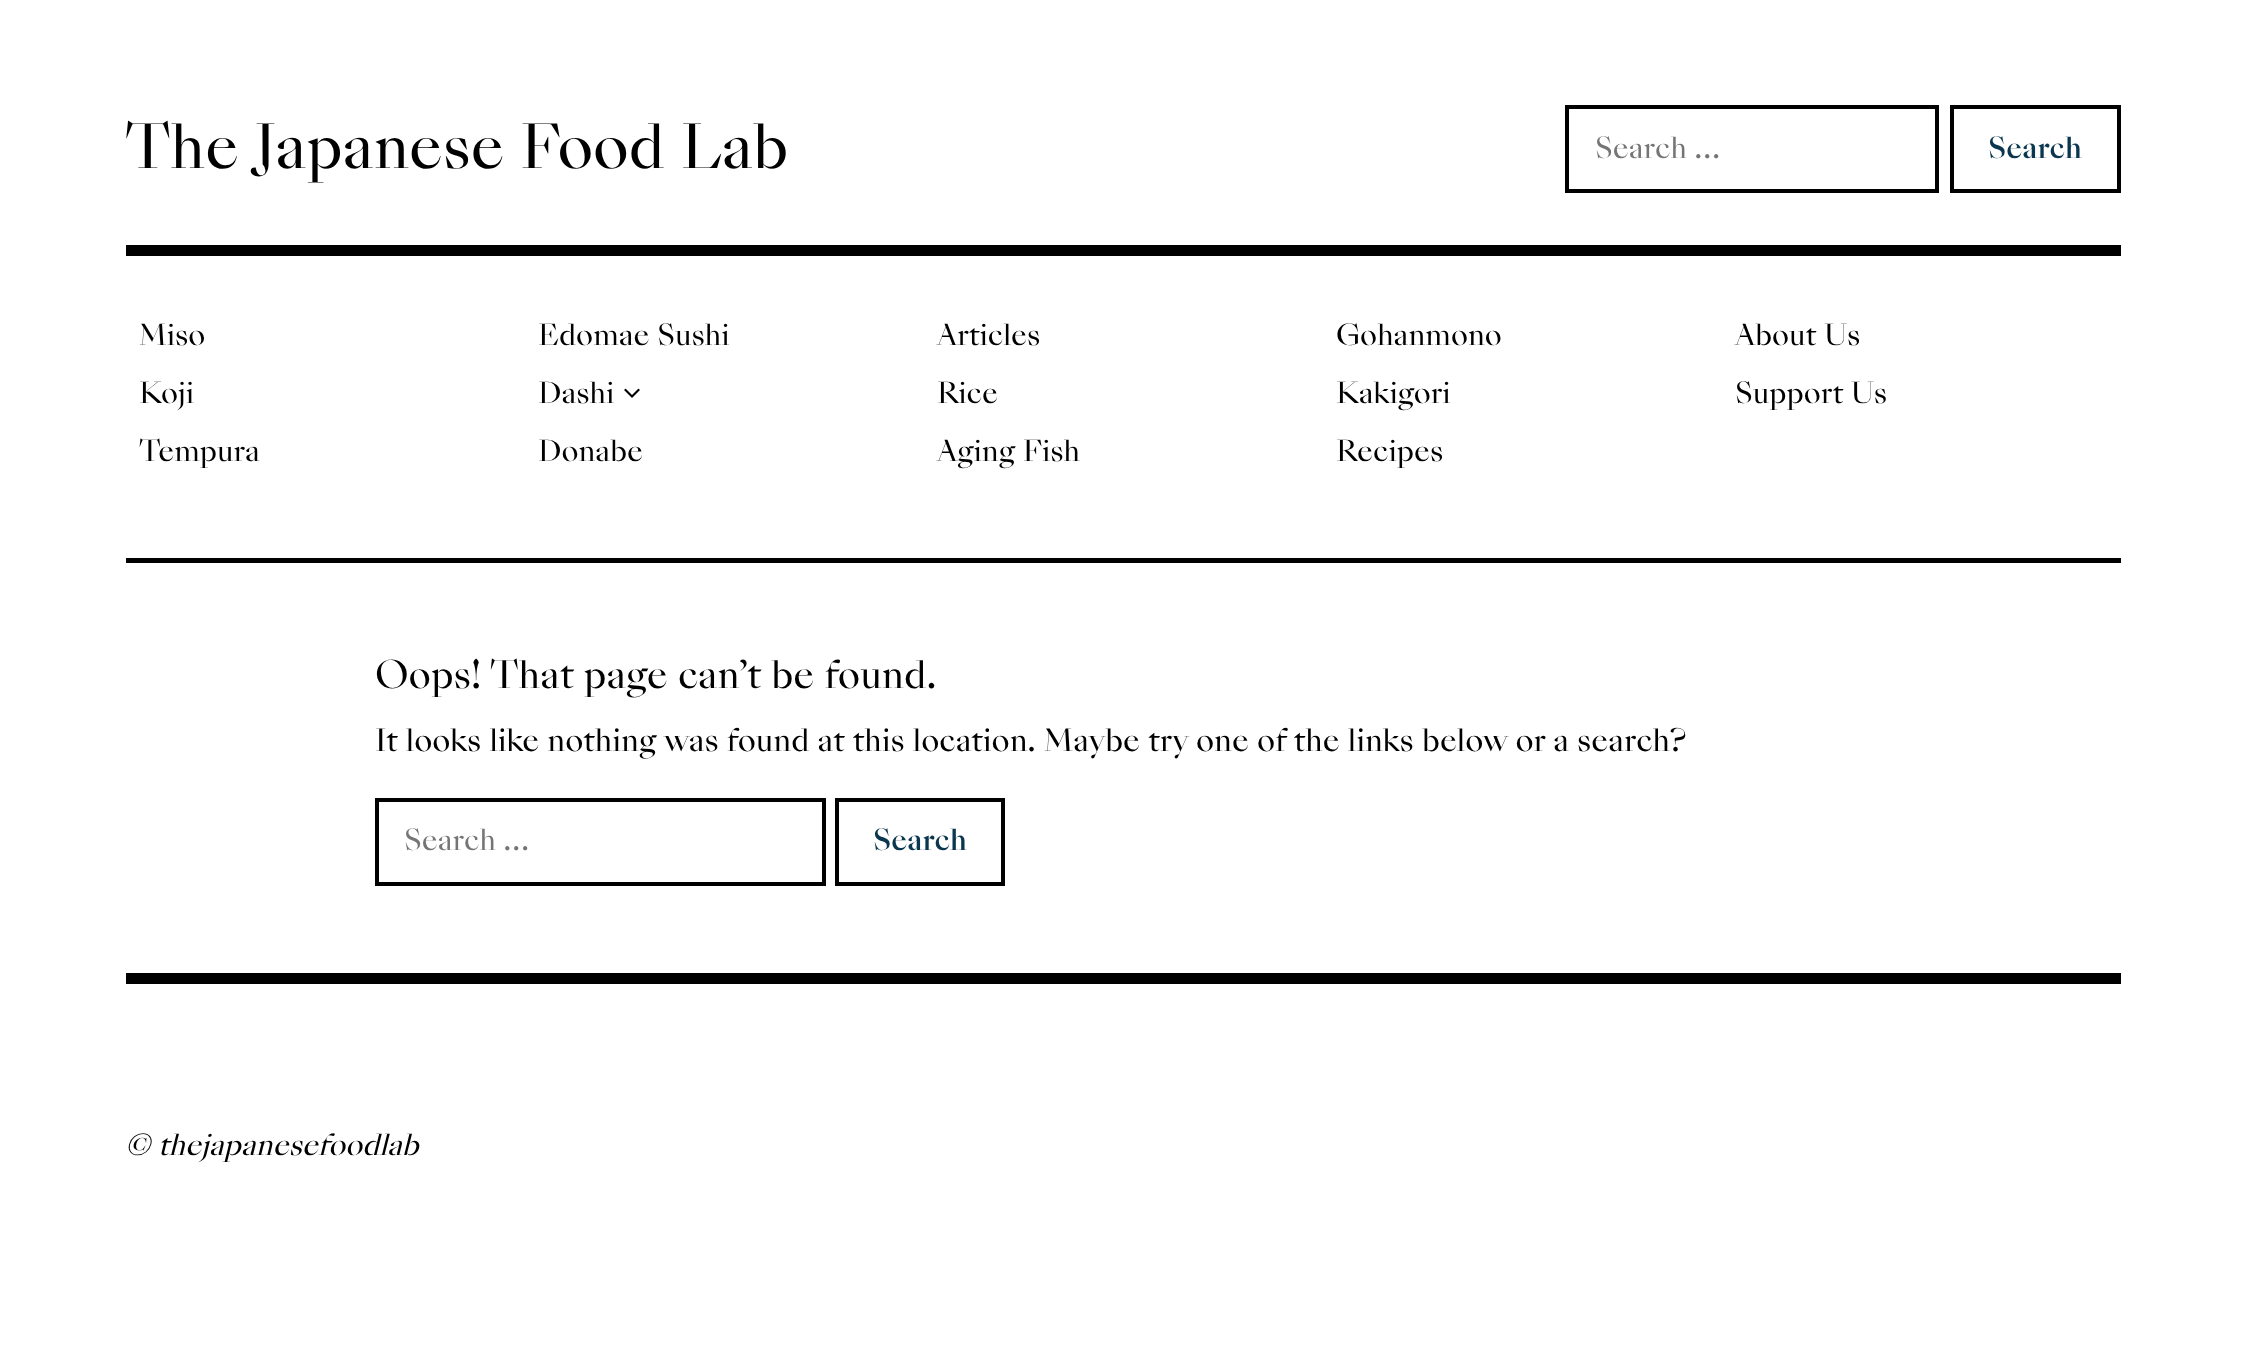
<?xml version="1.0" encoding="UTF-8"?>
<svg xmlns="http://www.w3.org/2000/svg" xmlns:xlink="http://www.w3.org/1999/xlink" width="2244" height="1362">
  <rect width="100%" height="100%" fill="#ffffff" />
  <rect x="126" y="245" width="1995" height="11" fill="#000000" />
  <rect x="1567" y="107" width="370" height="84" fill="none" stroke="#000000" stroke-width="4" />
  <rect x="1952" y="107" width="167" height="84" fill="none" stroke="#000000" stroke-width="4" />
  <image x="624" y="388" width="16" height="10" xlink:href="image1.png" />
  <rect x="126" y="558" width="1995" height="5" fill="#000000" />
  <rect x="377" y="800" width="447" height="84" fill="none" stroke="#000000" stroke-width="4" />
  <rect x="837" y="800" width="166" height="84" fill="none" stroke="#000000" stroke-width="4" />
  <rect x="126" y="973" width="1995" height="11" fill="#000000" />
  <text x="125" y="168" style="font-family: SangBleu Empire; font-size: 58.75px; fill: #000000">The Japanese Food Lab</text>
  <text x="1595" y="158" style="font-family: SangBleu Empire; font-size: 28px; fill: #757575">Search …</text>
  <text x="1988" y="158" style="font-family: SangBleu Empire; font-size: 28px; font-weight: 500; fill: #0a374f">Search</text>
  <text x="139" y="345" style="font-family: SangBleu Empire; font-size: 28px; fill: #000000">Miso</text>
  <text x="139" y="403" style="font-family: SangBleu Empire; font-size: 28px; fill: #000000">Koji</text>
  <text x="139" y="461" style="font-family: SangBleu Empire; font-size: 28px; fill: #000000">Tempura</text>
  <text x="538" y="345" style="font-family: SangBleu Empire; font-size: 28px; fill: #000000">Edomae Sushi</text>
  <text x="538" y="403" style="font-family: SangBleu Empire; font-size: 28px; fill: #000000">Dashi</text>
  <text x="538" y="461" style="font-family: SangBleu Empire; font-size: 28px; fill: #000000">Donabe</text>
  <text x="937" y="345" style="font-family: SangBleu Empire; font-size: 28px; fill: #000000">Articles</text>
  <text x="937" y="403" style="font-family: SangBleu Empire; font-size: 28px; fill: #000000">Rice</text>
  <text x="937" y="461" style="font-family: SangBleu Empire; font-size: 28px; fill: #000000">Aging Fish</text>
  <text x="1336" y="345" style="font-family: SangBleu Empire; font-size: 28px; fill: #000000">Gohanmono</text>
  <text x="1336" y="403" style="font-family: SangBleu Empire; font-size: 28px; fill: #000000">Kakigori</text>
  <text x="1336" y="461" style="font-family: SangBleu Empire; font-size: 28px; fill: #000000">Recipes</text>
  <text x="1735" y="345" style="font-family: SangBleu Empire; font-size: 28px; fill: #000000">About Us</text>
  <text x="1735" y="403" style="font-family: SangBleu Empire; font-size: 28px; fill: #000000">Support Us</text>
  <text x="375" y="688" style="font-family: SangBleu Empire; font-size: 36.75px; fill: #000000">Oops! That page can’t be found.</text>
  <text x="375" y="751" style="font-family: SangBleu Empire; font-size: 29.75px; fill: #000000">It looks like nothing was found at this location. Maybe try one of the links below or a search?</text>
  <text x="404" y="850" style="font-family: SangBleu Empire; font-size: 28px; fill: #757575">Search …</text>
  <text x="873" y="850" style="font-family: SangBleu Empire; font-size: 28px; font-weight: 500; fill: #0a374f">Search</text>
  <text x="125" y="1155" style="font-family: SangBleu Empire; font-size: 28px; font-style: italic; fill: #000000">© thejapanesefoodlab</text>
</svg>
